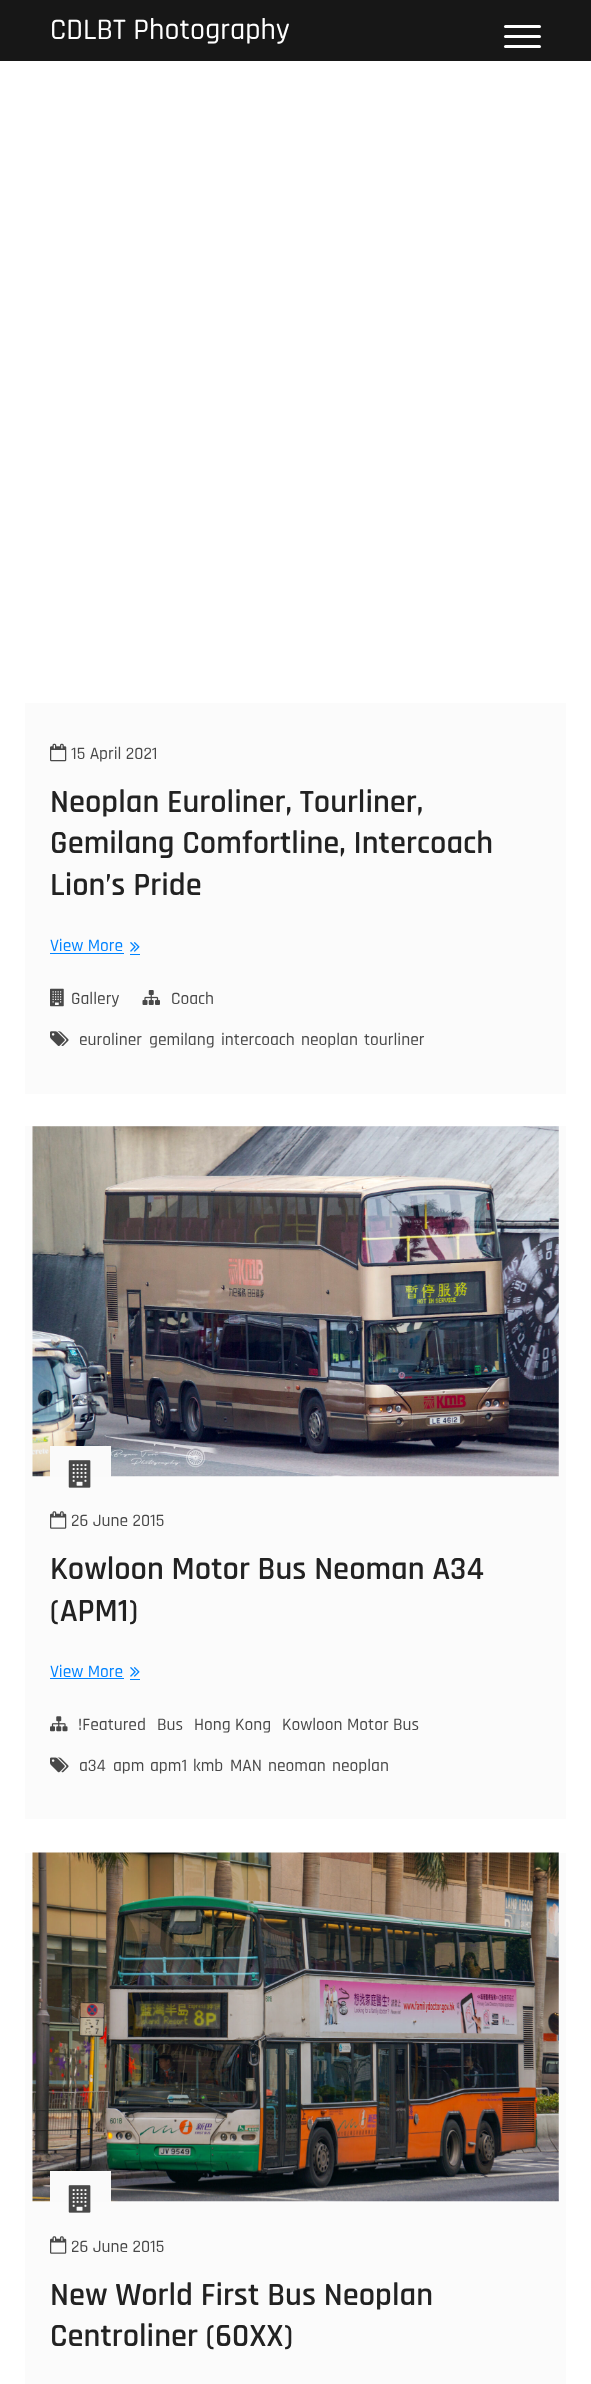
<?xml version="1.0" encoding="UTF-8"?>
<svg xmlns="http://www.w3.org/2000/svg" xmlns:xlink="http://www.w3.org/1999/xlink" width="591" height="2384">
  <rect width="100%" height="100%" fill="#ffffff" />
  <rect width="591" height="61" fill="#171717" />
  <rect x="504" y="35" width="37" height="3" rx="1.5" fill="#ffffff" />
  <rect x="504" y="25" width="37" height="3" rx="1.5" fill="#ffffff" />
  <rect x="504" y="45" width="37" height="3" rx="1.5" fill="#ffffff" />
  <rect x="25" y="703" width="541" height="391" fill="#fbfbfb" />
  <image x="50" y="743" width="17" height="19" xlink:href="image1.png" />
  <rect x="50" y="953" width="74" height="1" fill="#0083ff" />
  <image x="130" y="942" width="10" height="10" xlink:href="image2.png" />
  <rect x="130" y="954" width="10" height="1" fill="#0083ff" />
  <image x="50" y="988" width="14" height="19" xlink:href="image3.png" />
  <image x="142" y="990" width="18" height="15" xlink:href="image4.png" />
  <image x="50" y="1031" width="19" height="15" xlink:href="image5.png" />
  <rect x="25" y="1126" width="541" height="693" fill="#fbfbfb" />
  <image x="32" y="1126" width="527" height="351" xlink:href="image6.png" />
  <rect x="50" y="1446" width="61" height="31" fill="#fafafa" />
  <image x="68" y="1460" width="23" height="28" xlink:href="image7.png" />
  <image x="50" y="1511" width="17" height="18" xlink:href="image8.png" />
  <rect x="50" y="1678" width="74" height="1" fill="#0083ff" />
  <image x="130" y="1667" width="10" height="10" xlink:href="image2.png" />
  <rect x="130" y="1679" width="10" height="1" fill="#0083ff" />
  <image x="50" y="1716" width="18" height="16" xlink:href="image9.png" />
  <image x="50" y="1757" width="19" height="16" xlink:href="image10.png" />
  <rect x="25" y="1853" width="541" height="531" fill="#fbfbfb" />
  <image x="32" y="1852" width="527" height="350" xlink:href="image11.png" />
  <rect x="50" y="2171" width="61" height="31" fill="#fafafa" />
  <image x="68" y="2185" width="23" height="28" xlink:href="image7.png" />
  <image x="50" y="2236" width="17" height="18" xlink:href="image8.png" />
  <text x="50" y="39" style="font-family: Rajdhani; font-size: 30px; font-weight: 500; fill: #ffffff">CDLBT Photography</text>
  <text x="71" y="759" style="font-family: Rajdhani; font-size: 17.5px; font-weight: 500; fill: #484848">15 April 2021</text>
  <text x="50" y="812" style="font-family: Rajdhani; font-size: 32.5px; font-weight: 600; fill: #222222">Neoplan Euroliner, Tourliner,</text>
  <text x="50" y="853" style="font-family: Rajdhani; font-size: 32.5px; font-weight: 600; fill: #222222">Gemilang Comfortline, Intercoach</text>
  <text x="50" y="895" style="font-family: Rajdhani; font-size: 32.5px; font-weight: 600; fill: #222222">Lion’s Pride</text>
  <text x="50" y="951" style="font-family: Rajdhani; font-size: 17.5px; font-weight: 500; fill: #0083ff">View More</text>
  <text x="71" y="1004" style="font-family: Rajdhani; font-size: 17.5px; font-weight: 500; fill: #484848">Gallery</text>
  <text x="171" y="1004" style="font-family: Rajdhani; font-size: 17.5px; font-weight: 500; fill: #484848">Coach</text>
  <text x="79" y="1045" style="font-family: Rajdhani; font-size: 17.5px; font-weight: 500; fill: #484848">euroliner</text>
  <text x="149" y="1045" style="font-family: Rajdhani; font-size: 17.5px; font-weight: 500; fill: #484848">gemilang</text>
  <text x="221" y="1045" style="font-family: Rajdhani; font-size: 17.5px; font-weight: 500; fill: #484848">intercoach</text>
  <text x="301" y="1045" style="font-family: Rajdhani; font-size: 17.5px; font-weight: 500; fill: #484848">neoplan</text>
  <text x="364" y="1045" style="font-family: Rajdhani; font-size: 17.5px; font-weight: 500; fill: #484848">tourliner</text>
  <text x="71" y="1526" style="font-family: Rajdhani; font-size: 17.5px; font-weight: 500; fill: #484848">26 June 2015</text>
  <text x="50" y="1579" style="font-family: Rajdhani; font-size: 32.5px; font-weight: 600; fill: #222222">Kowloon Motor Bus Neoman A34</text>
  <text x="50" y="1621" style="font-family: Rajdhani; font-size: 32.5px; font-weight: 600; fill: #222222">(APM1)</text>
  <text x="50" y="1677" style="font-family: Rajdhani; font-size: 17.5px; font-weight: 500; fill: #0083ff">View More</text>
  <text x="78" y="1730" style="font-family: Rajdhani; font-size: 17.5px; font-weight: 500; fill: #484848">!Featured</text>
  <text x="157" y="1730" style="font-family: Rajdhani; font-size: 17.5px; font-weight: 500; fill: #484848">Bus</text>
  <text x="194" y="1730" style="font-family: Rajdhani; font-size: 17.5px; font-weight: 500; fill: #484848">Hong Kong</text>
  <text x="282" y="1730" style="font-family: Rajdhani; font-size: 17.5px; font-weight: 500; fill: #484848">Kowloon Motor Bus</text>
  <text x="79" y="1771" style="font-family: Rajdhani; font-size: 17.5px; font-weight: 500; fill: #484848">a34</text>
  <text x="113" y="1771" style="font-family: Rajdhani; font-size: 17.5px; font-weight: 500; fill: #484848">apm</text>
  <text x="150" y="1771" style="font-family: Rajdhani; font-size: 17.5px; font-weight: 500; fill: #484848">apm1</text>
  <text x="193" y="1771" style="font-family: Rajdhani; font-size: 17.5px; font-weight: 500; fill: #484848">kmb</text>
  <text x="230" y="1771" style="font-family: Rajdhani; font-size: 17.5px; font-weight: 500; fill: #484848">MAN</text>
  <text x="268" y="1771" style="font-family: Rajdhani; font-size: 17.5px; font-weight: 500; fill: #484848">neoman</text>
  <text x="332" y="1771" style="font-family: Rajdhani; font-size: 17.5px; font-weight: 500; fill: #484848">neoplan</text>
  <text x="71" y="2252" style="font-family: Rajdhani; font-size: 17.5px; font-weight: 500; fill: #484848">26 June 2015</text>
  <text x="50" y="2305" style="font-family: Rajdhani; font-size: 32.5px; font-weight: 600; fill: #222222">New World First Bus Neoplan</text>
  <text x="50" y="2346" style="font-family: Rajdhani; font-size: 32.5px; font-weight: 600; fill: #222222">Centroliner (60XX)</text>
</svg>
